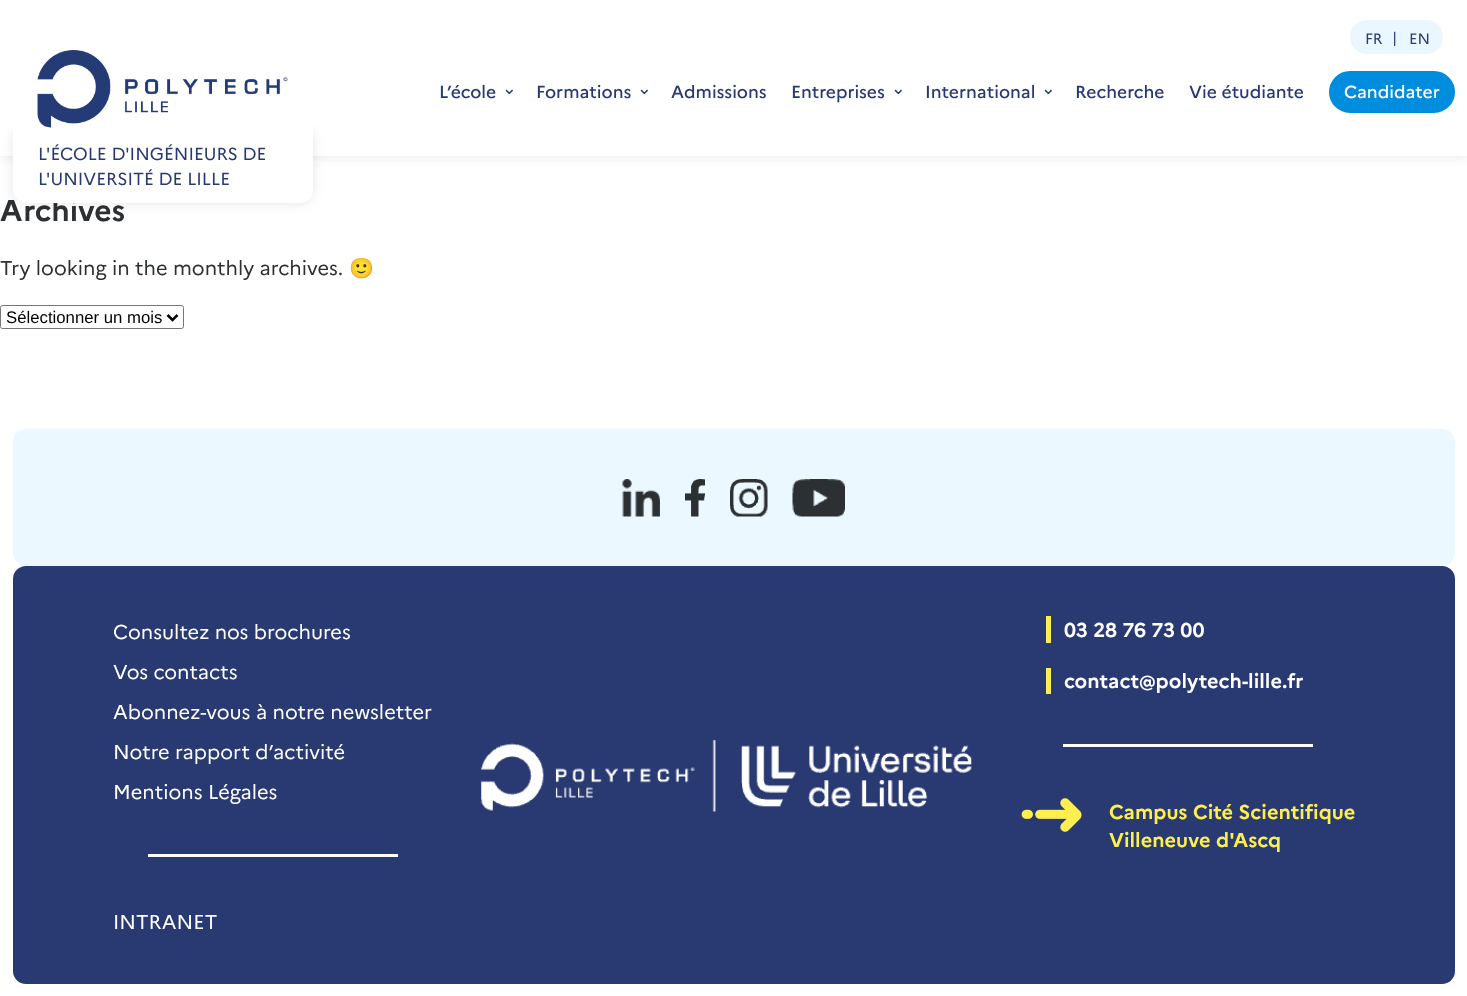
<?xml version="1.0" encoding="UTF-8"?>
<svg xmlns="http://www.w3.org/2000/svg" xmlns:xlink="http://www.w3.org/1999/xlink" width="1467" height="996">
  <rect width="100%" height="100%" fill="#ffffff" />
  <rect width="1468" height="156" fill="#000000" fill-opacity="0.1" filter="blur(6px)" />
  <rect width="1467" height="156" fill="#ffffff" />
  <path d="M 1367 20 h 29 v 34 h -29 c -9.5 0 -17 -7.5 -17 -17 c 0 -9.5 7.5 -17 17 -17 z" fill="#eaf7ff" />
  <path d="M 1396 20 h 30 c 9.5 0 17 7.5 17 17 c 0 9.5 -7.5 17 -17 17 h -30 z" fill="#eaf7ff" />
  <rect x="1330.5" y="72.5" width="123" height="39" rx="19.5" fill="#008ddd" stroke="#008ddd" stroke-width="3" />
  <rect x="13" y="128" width="300" height="75" rx="13" fill="#000000" fill-opacity="0.1" filter="blur(6px)" />
  <path d="M 26 50 h 274 c 7 0 13 6 13 13 v 65 h -300 v -65 c 0 -7 6 -13 13 -13 z" fill="#ffffff" />
  <image x="37" y="50" width="251" height="78" xlink:href="image1.png" />
  <rect x="0.5" y="305.5" width="183" height="23" rx="2" fill="none" stroke="#767676" />
  <path d="M 167.5 315 l 5 5 l 5 -5" fill="none" stroke="#000000" stroke-width="2.5" />
  <rect x="13" y="429" width="1442" height="137" rx="13" fill="#ebf8ff" />
  <image x="622" y="479" width="38" height="38" xlink:href="image2.png" />
  <image x="685" y="479" width="20" height="38" xlink:href="image3.png" />
  <image x="730" y="479" width="38" height="38" xlink:href="image4.png" />
  <image x="792" y="479" width="53" height="38" xlink:href="image5.png" />
  <rect x="13" y="566" width="1442" height="418" rx="13" fill="#293a72" />
  <rect x="148" y="854" width="250" height="3" fill="#ffffff" />
  <image x="481" y="740" width="491" height="72" xlink:href="image6.png" />
  <rect x="1046" y="616" width="5" height="27" fill="#fdef50" />
  <rect x="1046" y="668" width="5" height="26" fill="#fdef50" />
  <rect x="1063" y="744" width="250" height="3" fill="#ffffff" />
  <image x="1021" y="798" width="61" height="34" xlink:href="image7.png" />
  <text x="1365" y="44" style="font-family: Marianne; font-size: 15px; fill: #293a72">FR</text>
  <text x="1392" y="43" style="font-family: Marianne; font-size: 15px; fill: #293a72">|</text>
  <text x="1409" y="44" style="font-family: Marianne; font-size: 15px; fill: #293a72">EN</text>
  <text x="439" y="98" style="font-family: Marianne; font-size: 17.5px; font-weight: 500; fill: #293a72">L’école</text>
  <text x="502" y="94" style="font-family: DejaVu Sans; font-size: 17.5px; fill: #293a72">⌄</text>
  <text x="536" y="98" style="font-family: Marianne; font-size: 17.5px; font-weight: 500; fill: #293a72">Formations</text>
  <text x="637" y="94" style="font-family: DejaVu Sans; font-size: 17.5px; fill: #293a72">⌄</text>
  <text x="671" y="98" style="font-family: Marianne; font-size: 17.5px; font-weight: 500; fill: #293a72">Admissions</text>
  <text x="791" y="98" style="font-family: Marianne; font-size: 17.5px; font-weight: 500; fill: #293a72">Entreprises</text>
  <text x="891" y="94" style="font-family: DejaVu Sans; font-size: 17.5px; fill: #293a72">⌄</text>
  <text x="925" y="98" style="font-family: Marianne; font-size: 17.5px; font-weight: 500; fill: #293a72">International</text>
  <text x="1041" y="94" style="font-family: DejaVu Sans; font-size: 17.5px; fill: #293a72">⌄</text>
  <text x="1075" y="98" style="font-family: Marianne; font-size: 17.5px; font-weight: 500; fill: #293a72">Recherche</text>
  <text x="1189" y="98" style="font-family: Marianne; font-size: 17.5px; font-weight: 500; fill: #293a72">Vie étudiante</text>
  <text x="1344" y="98" style="font-family: Marianne; font-size: 17.5px; font-weight: 500; fill: #ffffff">Candidater</text>
  <text x="0" y="221" style="font-family: Marianne; font-size: 30px; font-weight: bold; fill: #2c3033">Archives</text>
  <path d="M 13 128 h 300 v 62 c 0 7 -6 13 -13 13 h -274 c -7 0 -13 -6 -13 -13 z" fill="#ffffff" />
  <text x="38" y="185" style="font-family: Marianne; font-size: 17.5px; fill: #293a72">L'UNIVERSITÉ DE LILLE</text>
  <text x="38" y="160" style="font-family: Marianne; font-size: 17.5px; fill: #293a72">L'ÉCOLE D'INGÉNIEURS DE</text>
  <text x="0" y="275" style="font-family: Marianne; font-size: 20px; fill: #2c3033">Try looking in the monthly archives.</text>
  <text x="349" y="275" style="font-family: Noto Color Emoji; font-size: 20px; fill: #2c3033">🙂</text>
  <text x="6" y="323" style="font-family: Liberation Sans; font-size: 16.75px; fill: #000000">Sélectionner un mois</text>
  <text x="113" y="639" style="font-family: Marianne; font-size: 20px; fill: #ffffff">Consultez nos brochures</text>
  <text x="113" y="679" style="font-family: Marianne; font-size: 20px; fill: #ffffff">Vos contacts</text>
  <text x="113" y="719" style="font-family: Marianne; font-size: 20px; fill: #ffffff">Abonnez-vous à notre newsletter</text>
  <text x="113" y="759" style="font-family: Marianne; font-size: 20px; fill: #ffffff">Notre rapport d’activité</text>
  <text x="113" y="799" style="font-family: Marianne; font-size: 20px; fill: #ffffff">Mentions Légales</text>
  <text x="113" y="929" style="font-family: Marianne; font-size: 20px; fill: #ffffff">INTRANET</text>
  <text x="1064" y="637" style="font-family: Marianne; font-size: 20px; font-weight: bold; fill: #ffffff">03 28 76 73 00</text>
  <text x="1064" y="688" style="font-family: Marianne; font-size: 20px; font-weight: bold; fill: #ffffff">contact@polytech-lille.fr</text>
  <text x="1109" y="819" style="font-family: Marianne; font-size: 20px; font-weight: bold; fill: #fdef4e">Campus Cité Scientifique</text>
  <text x="1109" y="847" style="font-family: Marianne; font-size: 20px; font-weight: bold; fill: #fdef4e">Villeneuve d'Ascq</text>
</svg>
